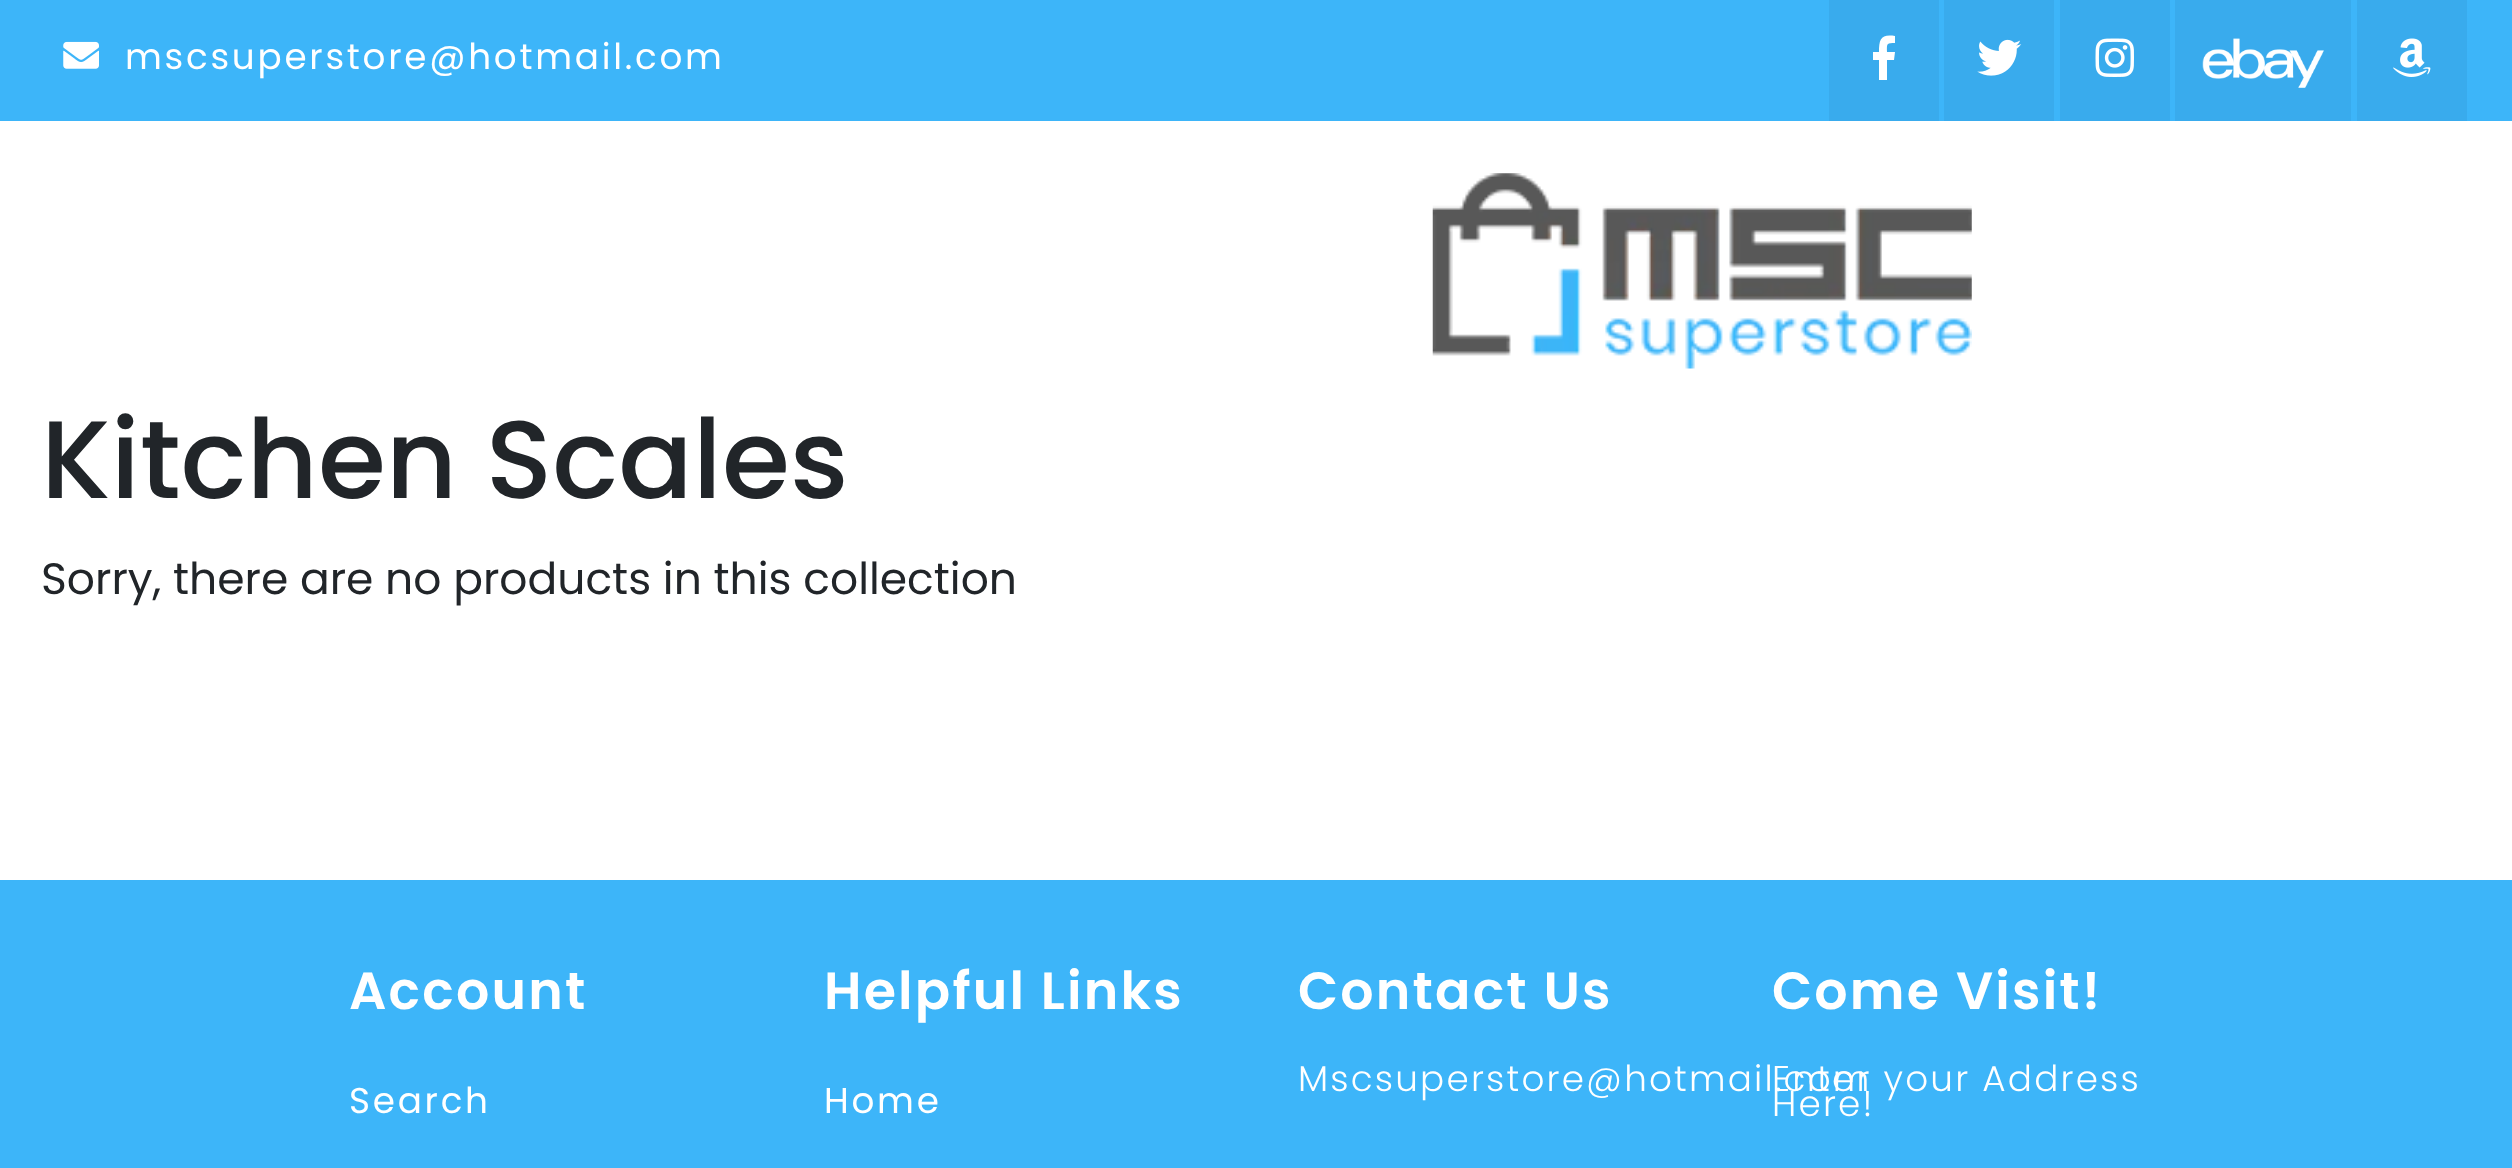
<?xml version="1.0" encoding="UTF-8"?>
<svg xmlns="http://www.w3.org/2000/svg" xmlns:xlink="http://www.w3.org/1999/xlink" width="2512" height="1168">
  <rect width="100%" height="100%" fill="#ffffff" />
  <rect width="2512" height="121" fill="#3db5f9" />
  <image x="63" y="41" width="36" height="28" xlink:href="image1.png" />
  <rect x="1829" width="110" height="121" fill="#39abed" />
  <path d="M 1879 80 v -20 h -6 v -8 h 6 c 0 -13 2 -18 16 -16 v 7 c -9 0 -8 1 -8 9 h 8 l -1 8 h -7 v 20 z" fill="#ffffff" />
  <rect x="1944" width="110" height="121" fill="#39abed" />
  <image x="1977" y="39" width="45" height="37" xlink:href="image2.png" />
  <rect x="2060" width="110" height="121" fill="#39abed" />
  <image x="2095" y="38" width="39" height="39" xlink:href="image3.png" />
  <rect x="2175" width="176" height="121" fill="#39abed" />
  <image x="2202" y="38" width="122" height="50" xlink:href="image4.png" />
  <rect x="2357" width="110" height="121" fill="#39abed" />
  <image x="2393" y="38" width="38" height="39" xlink:href="image5.png" />
  <image x="1432" y="173" width="540" height="196" xlink:href="image6.png" />
  <rect y="880" width="2512" height="288" fill="#3db5f9" />
  <text x="125" y="69" style="font-family: Poppins; font-size: 35.75px; letter-spacing: 2.75px; fill: #ffffff">mscsuperstore@hotmail.com</text>
  <text x="41" y="498" style="font-family: Poppins; font-size: 110px; font-weight: 500; fill: #212529">Kitchen Scales</text>
  <text x="41" y="594" style="font-family: Poppins; font-size: 44px; fill: #212529">Sorry, there are no products in this collection</text>
  <text x="349" y="1009" style="font-family: Poppins; font-size: 52.25px; font-weight: 600; letter-spacing: 2.2px; fill: #ffffff">Account</text>
  <text x="349" y="1113" style="font-family: Poppins; font-size: 35.75px; letter-spacing: 2.75px; fill: #ffffff">Search</text>
  <text x="824" y="1009" style="font-family: Poppins; font-size: 52.25px; font-weight: 600; letter-spacing: 2.2px; fill: #ffffff">Helpful Links</text>
  <text x="824" y="1113" style="font-family: Poppins; font-size: 35.75px; letter-spacing: 2.75px; fill: #ffffff">Home</text>
  <text x="1298" y="1009" style="font-family: Poppins; font-size: 52.25px; font-weight: 600; letter-spacing: 2.2px; fill: #ffffff">Contact Us</text>
  <text x="1298" y="1091" style="font-family: Poppins; font-size: 35.75px; font-weight: 300; letter-spacing: 2.2px; fill: #ffffff">Mscsuperstore@hotmail.com</text>
  <text x="1772" y="1009" style="font-family: Poppins; font-size: 52.25px; font-weight: 600; letter-spacing: 2.2px; fill: #ffffff">Come Visit!</text>
  <text x="1772" y="1091" style="font-family: Poppins; font-size: 35.75px; font-weight: 300; letter-spacing: 2.2px; fill: #ffffff">Enter your Address</text>
  <text x="1772" y="1116" style="font-family: Poppins; font-size: 35.75px; font-weight: 300; letter-spacing: 2.2px; fill: #ffffff">Here!</text>
</svg>
